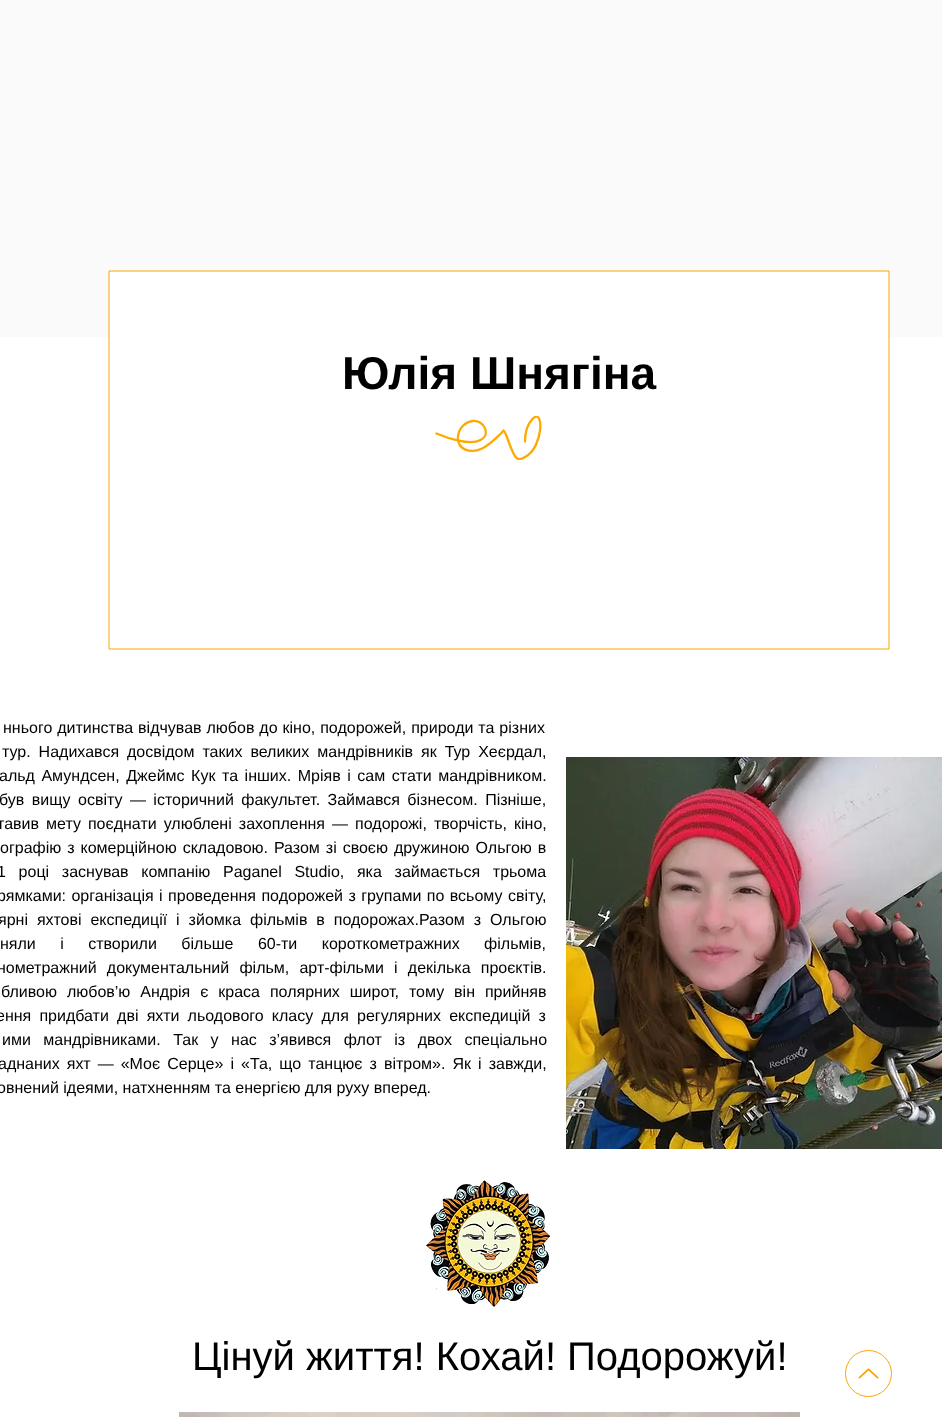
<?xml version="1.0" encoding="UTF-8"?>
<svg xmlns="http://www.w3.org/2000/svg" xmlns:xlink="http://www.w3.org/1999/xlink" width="942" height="1417">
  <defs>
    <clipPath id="clip1"><rect x="434" y="416" width="109" height="44" /></clipPath>
  </defs>
  <rect width="100%" height="100%" fill="#ffffff" />
  <rect width="942" height="337" fill="#fafafa" />
  <rect x="109" y="271" width="780" height="66" fill="#ffffff" />
  <path d="M 889 271 v 378 h -780 v -378 z" fill="none" stroke="#faa700" />
  <g clip-path="url(#clip1)">
    <path d="M 436.5 433.5 c 10.5 4.5 33.5 12.5 44 6.5 c 11 -5.5 3 -20.5 -8 -19 c -7.5 1 -13.5 7.5 -14.5 15 c -1.5 14.5 13.5 17.5 24 12.5 c 7.5 -3.5 13.5 -10 19.5 -15.5 l 2 -2.5 c 2.5 0 8 24 13 27.5 c 2.5 2 6.5 0.5 8.5 -1 c 18.5 -9 19.5 -51.5 7 -37.5 c -5.5 6 -7 14 -7 22" fill="none" stroke="#fea901" stroke-width="2.3" stroke-linecap="round" stroke-linejoin="round" />
  </g>
  <image x="566" y="757" width="376" height="392" xlink:href="image1.png" />
  <image x="425" y="1180" width="125" height="127" xlink:href="image2.png" />
  <image x="179" y="1412" width="621" height="5" xlink:href="image3.png" />
  <circle cx="868.5" cy="1373.5" r="23" fill="none" stroke="#faa700" />
  <image x="858" y="1368" width="21" height="11" xlink:href="image4.png" />
  <text x="342" y="389" style="font-family: Liberation Sans; font-size: 46px; font-weight: bold; fill: #000000">Юлія Шнягіна</text>
  <text x="3" y="733" word-spacing="0.5" style="font-family: Liberation Sans; font-size: 16px; fill: #000000">ннього дитинства відчував любов до кіно, подорожей, природи та різних</text>
  <text x="2" y="757" word-spacing="3.5" style="font-family: Liberation Sans; font-size: 16px; fill: #000000">тур. Надихався досвідом таких великих мандрівників як Тур Хеєрдал,</text>
  <text x="-1" y="781" word-spacing="2.1" style="font-family: Liberation Sans; font-size: 16px; fill: #000000">альд Амундсен, Джеймс Кук та інших. Мріяв і сам стати мандрівником.</text>
  <text x="-1" y="805" word-spacing="3" style="font-family: Liberation Sans; font-size: 16px; fill: #000000">був вищу освіту — історичний факультет. Займався бізнесом. Пізніше,</text>
  <text x="-3" y="829" word-spacing="2.6" style="font-family: Liberation Sans; font-size: 16px; fill: #000000">тавив мету поєднати улюблені захоплення — подорожі, творчість, кіно,</text>
  <text x="0" y="853" word-spacing="1.5" style="font-family: Liberation Sans; font-size: 16px; fill: #000000">ографію з комерційною складовою. Разом зі своєю дружиною Ольгою в</text>
  <text x="-3" y="877" word-spacing="8.25" style="font-family: Liberation Sans; font-size: 16px; fill: #000000">1 році заснував компанію Paganel Studio, яка займається трьома</text>
  <text x="-3" y="901" word-spacing="1" style="font-family: Liberation Sans; font-size: 16px; fill: #000000">рямками: організація і проведення подорожей з групами по всьому світу,</text>
  <text x="-2" y="925" word-spacing="4.5" style="font-family: Liberation Sans; font-size: 16px; fill: #000000">ярні яхтові експедиції і зйомка фільмів в подорожах.Разом з Ольгою</text>
  <text x="0" y="949" word-spacing="20" style="font-family: Liberation Sans; font-size: 16px; fill: #000000">няли і створили більше 60-ти короткометражних фільмів,</text>
  <text x="-3" y="973" word-spacing="5.75" style="font-family: Liberation Sans; font-size: 16px; fill: #000000">нометражний документальний фільм, арт-фільми і декілька проєктів.</text>
  <text x="1" y="997" word-spacing="5.5" style="font-family: Liberation Sans; font-size: 16px; fill: #000000">бливою любов’ю Андрія є краса полярних широт, тому він прийняв</text>
  <text x="-4" y="1021" word-spacing="3.75" style="font-family: Liberation Sans; font-size: 16px; fill: #000000">ення придбати дві яхти льодового класу для регулярних експедицій з</text>
  <text x="2" y="1045" word-spacing="8" style="font-family: Liberation Sans; font-size: 16px; fill: #000000">ими мандрівниками. Так у нас з’явився флот із двох спеціально</text>
  <text x="-2" y="1069" word-spacing="2.6" style="font-family: Liberation Sans; font-size: 16px; fill: #000000">аднаних яхт — «Моє Серце» і «Та, що танцює з вітром». Як і завжди,</text>
  <text x="-3" y="1093" style="font-family: Liberation Sans; font-size: 16px; fill: #000000">овнений ідеями, натхненням та енергією для руху вперед.</text>
  <text x="192" y="1370" style="font-family: Liberation Sans; font-size: 40px; fill: #000000">Цінуй життя! Кохай! Подорожуй!</text>
</svg>
